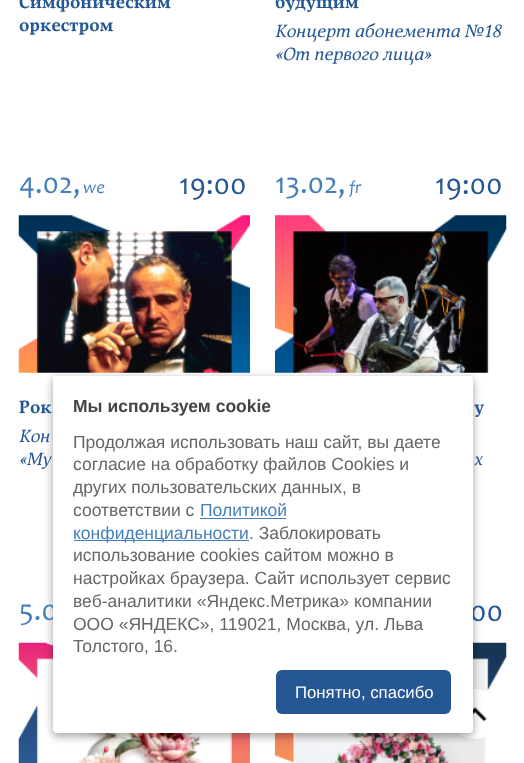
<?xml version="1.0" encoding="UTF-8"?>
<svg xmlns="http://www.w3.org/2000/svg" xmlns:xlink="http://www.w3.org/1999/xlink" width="524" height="763">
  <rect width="100%" height="100%" fill="#ffffff" />
  <image x="18" y="215" width="232" height="158" xlink:href="image1.png" />
  <image x="275" y="215" width="232" height="158" xlink:href="image2.png" />
  <image x="18" y="642" width="232" height="121" xlink:href="image3.png" />
  <image x="275" y="642" width="232" height="121" xlink:href="image4.png" />
  <circle cx="475" cy="714" r="25" fill="#ffffff" />
  <image x="473" y="707" width="14" height="15" xlink:href="image5.png" />
  <rect x="53" y="379" width="420" height="357" rx="4" fill="#000000" fill-opacity="0.23" filter="blur(4px)" />
  <rect x="53" y="379" width="420" height="357" rx="4" fill="#000000" fill-opacity="0.16" filter="blur(4px)" />
  <text x="19" y="8" style="font-family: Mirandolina; font-size: 17.5px; font-weight: bold; fill: #245793">Симфоническим</text>
  <text x="19" y="31" style="font-family: Mirandolina; font-size: 17.5px; font-weight: bold; fill: #245793">оркестром</text>
  <text x="275" y="8" style="font-family: Mirandolina; font-size: 17.5px; font-weight: bold; fill: #245793">будущим</text>
  <text x="275" y="37" style="font-family: Mirandolina; font-size: 17.5px; font-style: italic; fill: #245793">Концерт абонемента №18</text>
  <text x="275" y="60" style="font-family: Mirandolina; font-size: 17.5px; font-style: italic; fill: #245793">«От первого лица»</text>
  <text x="19" y="193" style="font-family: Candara; font-size: 30px; fill: #447fbb">4.02,</text>
  <text x="83" y="193" style="font-family: Candara; font-size: 18px; font-style: italic; fill: #447fbb">we</text>
  <text x="179" y="194" style="font-family: Candara; font-size: 30px; fill: #245793">19:00</text>
  <text x="19" y="413" style="font-family: Mirandolina; font-size: 17.5px; font-weight: bold; fill: #245793">Рок</text>
  <text x="19" y="442" style="font-family: Mirandolina; font-size: 17.5px; font-style: italic; fill: #245793">Кон</text>
  <text x="19" y="465" style="font-family: Mirandolina; font-size: 17.5px; font-style: italic; fill: #245793">«Му</text>
  <text x="275" y="193" style="font-family: Candara; font-size: 30px; fill: #447fbb">13.02,</text>
  <text x="349" y="193" style="font-family: Candara; font-size: 18px; font-style: italic; fill: #447fbb">fr</text>
  <text x="435" y="194" style="font-family: Candara; font-size: 30px; fill: #245793">19:00</text>
  <text x="474" y="413" style="font-family: Mirandolina; font-size: 17.5px; font-weight: bold; fill: #245793">у</text>
  <text x="474" y="465" style="font-family: Mirandolina; font-size: 17.5px; font-style: italic; fill: #245793">х</text>
  <text x="19" y="620" style="font-family: Candara; font-size: 30px; fill: #447fbb">5.0</text>
  <text x="470" y="621" style="font-family: Candara; font-size: 30px; fill: #245793">00</text>
  <rect x="53" y="375" width="420" height="358" rx="4" fill="#ffffff" />
  <rect x="55" y="375" width="416" height="1" fill="#e8e8e8" />
  <text x="73" y="412" style="font-family: Liberation Sans; font-size: 17.5px; font-weight: bold; fill: #444444">Мы используем cookie</text>
  <text x="73" y="448" style="font-family: Liberation Sans; font-size: 17.5px; fill: #666666">Продолжая использовать наш сайт, вы даете</text>
  <text x="73" y="470" style="font-family: Liberation Sans; font-size: 17.5px; fill: #666666">согласие на обработку файлов Cookies и</text>
  <text x="73" y="493" style="font-family: Liberation Sans; font-size: 17.5px; fill: #666666">других пользовательских данных, в</text>
  <text x="73" y="516" style="font-family: Liberation Sans; font-size: 17.5px; fill: #666666">соответствии с</text>
  <text x="200" y="516" style="font-family: Liberation Sans; font-size: 17.5px; fill: #447fbb">Политикой</text>
  <rect x="200" y="518" width="86" height="1" fill="#447fbb" />
  <rect x="74" y="540" width="175" height="1" fill="#447fbb" />
  <text x="73" y="539" style="font-family: Liberation Sans; font-size: 17.5px; fill: #447fbb">конфиденциальности</text>
  <text x="249" y="539" style="font-family: Liberation Sans; font-size: 17.5px; fill: #666666">. Заблокировать</text>
  <text x="73" y="561" style="font-family: Liberation Sans; font-size: 17.5px; fill: #666666">использование cookies сайтом можно в</text>
  <text x="73" y="584" style="font-family: Liberation Sans; font-size: 17.5px; fill: #666666">настройках браузера. Cайт использует сервис</text>
  <text x="73" y="607" style="font-family: Liberation Sans; font-size: 17.5px; fill: #666666">веб-аналитики «Яндекс.Метрика» компании</text>
  <text x="73" y="630" style="font-family: Liberation Sans; font-size: 17.5px; fill: #666666">ООО «ЯНДЕКС», 119021, Москва, ул. Льва</text>
  <text x="73" y="652" style="font-family: Liberation Sans; font-size: 17.5px; fill: #666666">Толстого, 16.</text>
  <rect x="276" y="670" width="175" height="44" rx="6" fill="#245793" />
  <text x="295" y="698" style="font-family: Liberation Sans; font-size: 16.75px; fill: #ffffff">Понятно, спасибо</text>
</svg>
